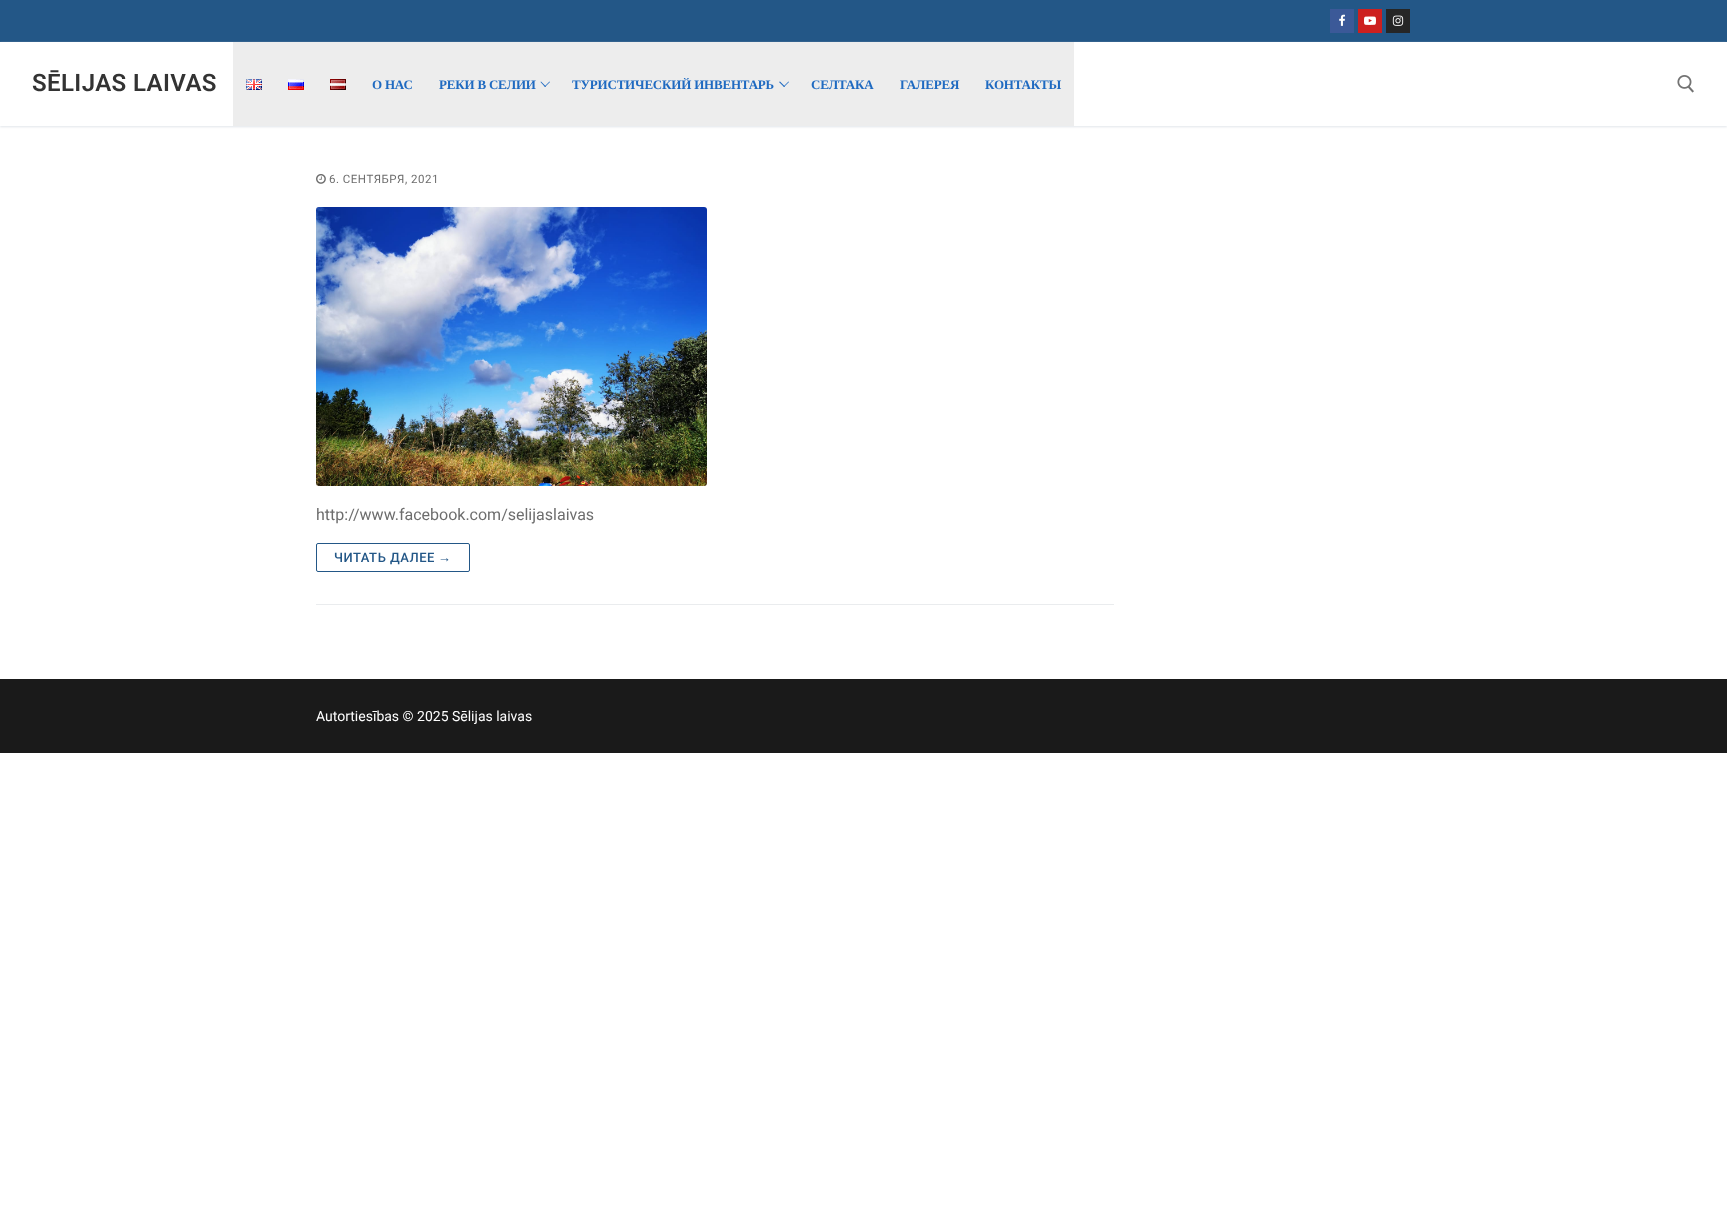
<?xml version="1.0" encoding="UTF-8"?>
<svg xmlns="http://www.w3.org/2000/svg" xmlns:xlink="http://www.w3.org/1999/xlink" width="1727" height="1219">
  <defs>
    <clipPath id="clip1"><path d="M 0 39 h 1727 v 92 h -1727 z m 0 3 h 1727 v 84 h -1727 z" clip-rule="evenodd" /></clipPath>
  </defs>
  <rect width="100%" height="100%" fill="#ffffff" />
  <rect width="1727" height="42" fill="#235787" />
  <rect x="1330" y="9" width="24" height="24" fill="#3b5998" />
  <image x="1339" y="14" width="6" height="12" xlink:href="image1.png" />
  <rect x="1358" y="9" width="24" height="24" fill="#cd201f" />
  <image x="1364" y="16" width="12" height="9" xlink:href="image2.png" />
  <rect x="1386" y="9" width="24" height="24" fill="#262626" />
  <image x="1392" y="15" width="12" height="11" xlink:href="image3.png" />
  <g clip-path="url(#clip1)">
    <rect y="43" width="1727" height="84" fill="#e1e5ea" filter="blur(1px)" />
  </g>
  <rect x="233" y="42" width="841" height="84" fill="#ededed" />
  <image x="246" y="79" width="16" height="11" xlink:href="image4.png" />
  <image x="288" y="79" width="16" height="11" xlink:href="image5.png" />
  <image x="330" y="79" width="16" height="11" xlink:href="image6.png" />
  <path d="M 545 87 l -4.5 -5 l 0.5 -0.5 l 5 5 z" fill="#1f6ac1" />
  <path d="M 545 87 l -0.5 -0.5 l 5 -5 l 0.5 0.5 z" fill="#1f6ac1" />
  <path d="M 784 87 l -5 -5 l 1 -0.5 l 5 5 z" fill="#1f6ac1" />
  <path d="M 784 87 l -0.5 -0.5 l 5 -5 l 0.5 0.5 z" fill="#1f6ac1" />
  <image x="1677" y="75" width="17" height="18" xlink:href="image7.png" />
  <rect x="316" y="604" width="798" height="1" fill="#eaecee" />
  <image x="316" y="174" width="10" height="10" xlink:href="image8.png" />
  <image x="316" y="207" width="391" height="279" xlink:href="image9.png" />
  <rect x="316.5" y="543.5" width="153" height="28" rx="1.5" fill="none" stroke="#235787" />
  <rect y="679" width="1727" height="74" fill="#1a1a1a" />
  <text x="32" y="91" style="font-family: Roboto; font-size: 24px; font-weight: 600; letter-spacing: 0.4px; fill: #333333">SĒLIJAS LAIVAS</text>
  <text x="372" y="89" style="font-family: Liberation Serif; font-size: 13px; font-weight: bold; letter-spacing: -0.2px; fill: #1f6ac1">О НАС</text>
  <text x="439" y="89" style="font-family: Liberation Serif; font-size: 13px; font-weight: bold; letter-spacing: -0.2px; fill: #1f6ac1">РЕКИ В СЕЛИИ</text>
  <text x="572" y="89" style="font-family: Liberation Serif; font-size: 13px; font-weight: bold; letter-spacing: -0.2px; fill: #1f6ac1">ТУРИСТИЧЕСКИЙ ИНВЕНТАРЬ</text>
  <text x="811" y="89" style="font-family: Liberation Serif; font-size: 13px; font-weight: bold; letter-spacing: -0.2px; fill: #1f6ac1">СЕЛТАКА</text>
  <text x="900" y="89" style="font-family: Liberation Serif; font-size: 13px; font-weight: bold; letter-spacing: -0.2px; fill: #1f6ac1">ГАЛЕРЕЯ</text>
  <text x="985" y="89" style="font-family: Liberation Serif; font-size: 13px; font-weight: bold; letter-spacing: -0.2px; fill: #1f6ac1">КОНТАКТЫ</text>
  <text x="329" y="183" style="font-family: Roboto; font-size: 11.5px; letter-spacing: 0.5px; fill: #6d6d6d">6. СЕНТЯБРЯ, 2021</text>
  <text x="316" y="520" style="font-family: Roboto; font-size: 16px; fill: #6d6d6d">http://www.facebook.com/selijaslaivas</text>
  <text x="334" y="562" style="font-family: Roboto; font-size: 13px; font-weight: 500; letter-spacing: 0.5px; fill: #235787">ЧИТАТЬ ДАЛЕЕ</text>
  <text x="438" y="562" style="font-family: Liberation Sans; font-size: 13px; letter-spacing: 0.5px; fill: #235787">→</text>
  <text x="316" y="721" style="font-family: Roboto; font-size: 14px; fill: #fdfdfd">Autortiesības © 2025 Sēlijas laivas</text>
</svg>
